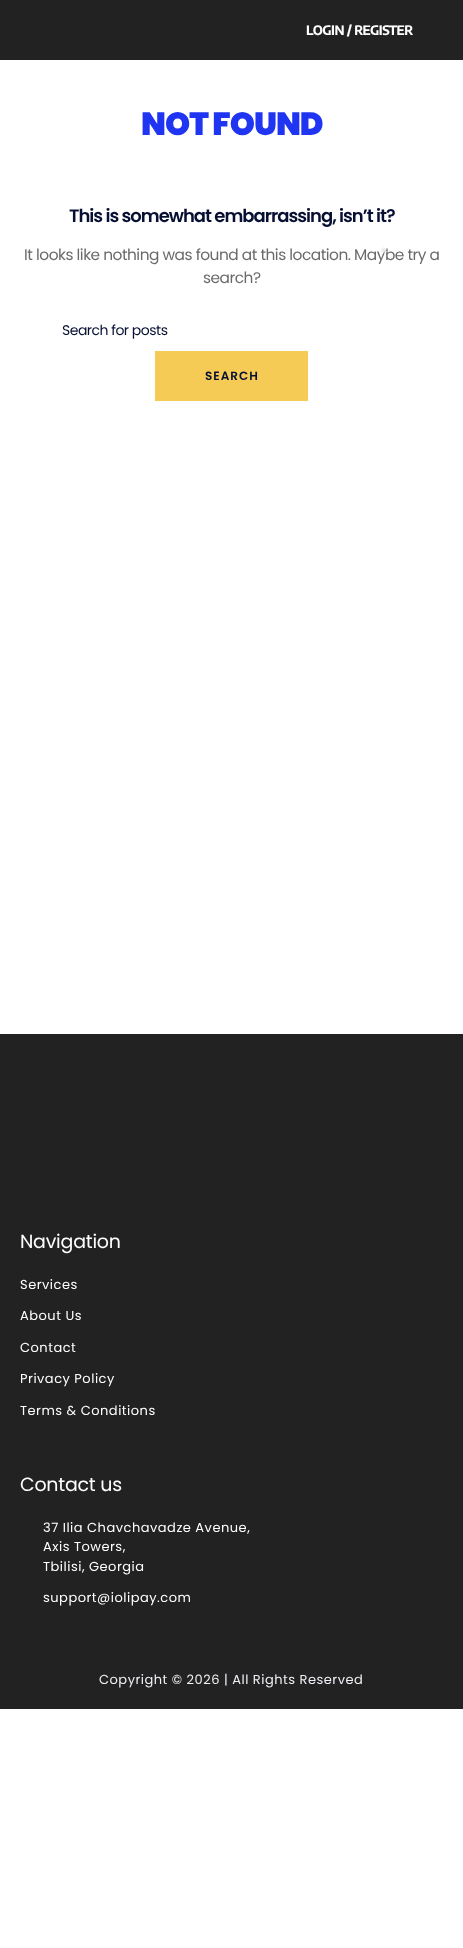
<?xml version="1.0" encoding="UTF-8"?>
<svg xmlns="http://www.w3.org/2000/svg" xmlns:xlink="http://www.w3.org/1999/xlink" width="463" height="1948">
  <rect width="100%" height="100%" fill="#ffffff" />
  <rect width="463" height="60" fill="#222222" />
  <rect x="155" y="351" width="153" height="50" fill="#f5cb55" />
  <rect y="1034" width="463" height="675" fill="#222222" />
  <text x="306" y="35" style="font-family: Encode Sans Condensed; font-size: 13px; font-weight: bold; letter-spacing: -0.5px; fill: #ffffff">LOGIN / REGISTER</text>
  <text x="141" y="135" style="font-family: Poppins; font-size: 32px; font-weight: 900; letter-spacing: -1px; fill: #2035f2">NOT FOUND</text>
  <text x="69" y="222" style="font-family: Poppins; font-size: 18px; font-weight: 600; letter-spacing: -1px; fill: #071033">This is somewhat embarrassing, isn’t it?</text>
  <text x="24" y="260" style="font-family: Poppins; font-size: 15.4px; letter-spacing: -0.5px; fill: #6a6a6a">It looks like nothing was found at this location. Maybe try a</text>
  <text x="380" y="259" style="font-family: Poppins; font-size: 16px; letter-spacing: -0.5px; fill: #e6e6e6">*</text>
  <text x="203" y="283" style="font-family: Poppins; font-size: 15.4px; letter-spacing: -0.5px; fill: #6a6a6a">search?</text>
  <text x="62" y="335" style="font-family: Poppins; font-size: 14px; letter-spacing: -0.5px; fill: #071033">Search for posts</text>
  <text x="205" y="380" style="font-family: Poppins; font-size: 12px; font-weight: 600; letter-spacing: 1px; fill: #071033">SEARCH</text>
  <text x="20" y="1248" style="font-family: Poppins; font-size: 19px; letter-spacing: -0.25px; fill: #ffffff">Navigation</text>
  <text x="20" y="1289" style="font-family: Poppins; font-size: 13px; letter-spacing: 0.5px; fill: #ffffff">Services</text>
  <text x="20" y="1320" style="font-family: Poppins; font-size: 13px; letter-spacing: 0.5px; fill: #ffffff">About Us</text>
  <text x="20" y="1352" style="font-family: Poppins; font-size: 13px; letter-spacing: 0.5px; fill: #ffffff">Contact</text>
  <text x="20" y="1383" style="font-family: Poppins; font-size: 13px; letter-spacing: 0.5px; fill: #ffffff">Privacy Policy</text>
  <text x="20" y="1415" style="font-family: Poppins; font-size: 13px; letter-spacing: 0.5px; fill: #ffffff">Terms &amp; Conditions</text>
  <text x="20" y="1491" style="font-family: Poppins; font-size: 19px; letter-spacing: -0.25px; fill: #ffffff">Contact us</text>
  <text x="43" y="1532" style="font-family: Poppins; font-size: 13px; letter-spacing: 0.5px; fill: #ffffff">37 Ilia Chavchavadze Avenue,</text>
  <text x="43" y="1551" style="font-family: Poppins; font-size: 13px; letter-spacing: 0.5px; fill: #ffffff">Axis Towers,</text>
  <text x="43" y="1571" style="font-family: Poppins; font-size: 13px; letter-spacing: 0.5px; fill: #ffffff">Tbilisi, Georgia</text>
  <text x="43" y="1602" style="font-family: Poppins; font-size: 13px; letter-spacing: 0.5px; fill: #ffffff">support@iolipay.com</text>
  <text x="99" y="1684" style="font-family: Poppins; font-size: 13px; letter-spacing: 0.5px; fill: #eff0f5">Copyright © 2026 | All Rights Reserved</text>
</svg>
